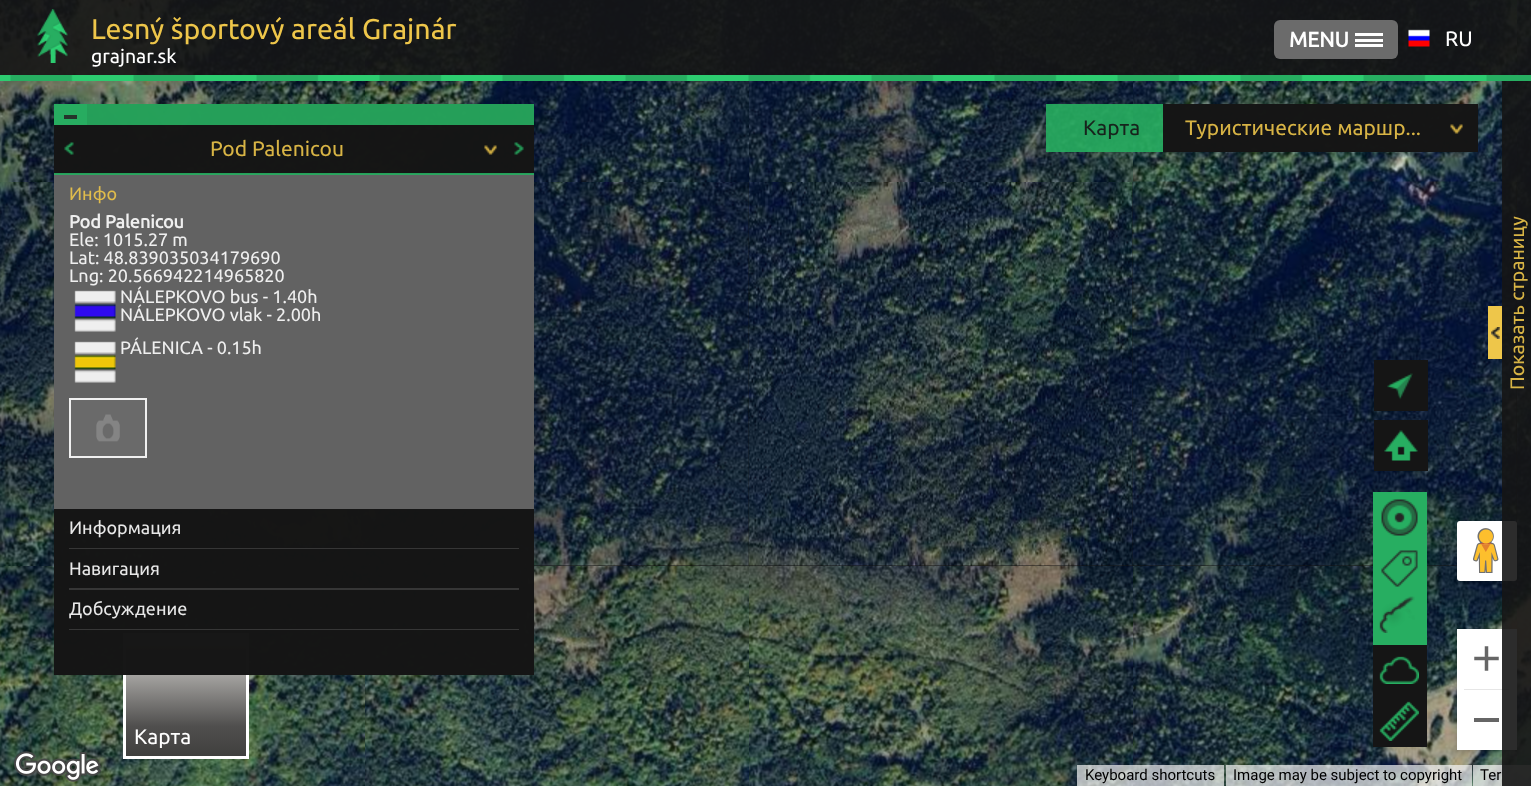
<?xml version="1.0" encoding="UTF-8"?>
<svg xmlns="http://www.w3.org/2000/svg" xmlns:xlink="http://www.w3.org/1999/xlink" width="1531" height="786">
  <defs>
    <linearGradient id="g1" gradientUnits="userSpaceOnUse" x1="186" y1="636" x2="186" y2="756"><stop offset="0" stop-color="#e5e3df" /><stop offset="0.75" stop-color="#504f4e" /><stop offset="1" stop-color="#40403e" /></linearGradient>
  </defs>
  <rect width="100%" height="100%" fill="#151515" />
  <image x="0" y="0" width="365" height="182" xlink:href="image19.png" />
  <image x="365" y="0" width="384" height="182" xlink:href="image20.png" />
  <image x="749" y="0" width="384" height="182" xlink:href="image21.png" />
  <image x="1133" y="0" width="384" height="182" xlink:href="image22.png" />
  <image x="1517" y="0" width="14" height="182" xlink:href="image23.png" />
  <rect width="1531" height="75" fill="#151515" fill-opacity="0.9" />
  <image x="37" y="9" width="31" height="54" xlink:href="image1.png" />
  <rect x="1274" y="20" width="124" height="39" rx="6" fill="#6b6b6b" />
  <rect x="1355" y="44" width="28" height="3" fill="#ffffff" />
  <rect x="1355" y="39" width="28" height="3" fill="#ffffff" />
  <rect x="1355" y="33" width="28" height="3" fill="#ffffff" />
  <image x="1408" y="29" width="22" height="18" xlink:href="image2.png" />
  <image x="0" y="75" width="1531" height="6" xlink:href="image3.png" />
  <rect x="1046" y="104" width="117" height="48" fill="#27ae61" fill-opacity="0.9" />
  <rect x="1163" y="104" width="315" height="48" fill="#151515" fill-opacity="0.9" />
  <rect x="1163" y="104" width="315" height="48" fill="#151515" fill-opacity="0.9" />
  <image x="1450" y="124" width="13" height="10" xlink:href="image4.png" />
  <image x="0" y="566" width="365" height="220" xlink:href="image29.png" />
  <rect x="124.5" y="634.5" width="123" height="123" fill="none" stroke="#ffffff" stroke-width="3" />
  <rect x="126" y="636" width="120" height="120" fill="url(#g1)" />
  <image x="0" y="182" width="365" height="384" xlink:href="image24.png" />
  <image x="748" y="182" width="385" height="384" xlink:href="image26.png" />
  <image x="365" y="182" width="384" height="384" xlink:href="image25.png" />
  <image x="365" y="566" width="384" height="220" xlink:href="image30.png" />
  <rect x="54" y="104" width="480" height="571" fill="#151515" fill-opacity="0.9" />
  <rect x="54" y="104" width="33" height="21" fill="#27ac60" />
  <rect x="64" y="115" width="13" height="4" fill="#25332b" />
  <rect x="87" y="104" width="447" height="21" fill="#27ae61" fill-opacity="0.9" />
  <rect x="54" y="125" width="480" height="48" fill="#151515" fill-opacity="0.9" />
  <image x="64" y="142" width="10" height="13" xlink:href="image5.png" />
  <rect x="54" y="174" width="480" height="335" fill="#626262" />
  <rect x="54" y="173" width="480" height="2" fill="#27ae61" fill-opacity="0.9" />
  <image x="484" y="145" width="13" height="10" xlink:href="image6.png" />
  <image x="514" y="142" width="10" height="13" xlink:href="image7.png" />
  <rect x="54" y="509" width="480" height="166" fill="#151515" fill-opacity="0.9" />
  <image x="74" y="290" width="42" height="42" xlink:href="image8.png" />
  <image x="74" y="341" width="42" height="42" xlink:href="image9.png" />
  <rect x="70" y="399" width="76" height="58" fill="#6a6a6a" stroke="#f0f0f0" stroke-width="2" />
  <image x="96" y="414" width="24" height="28" xlink:href="image10.png" />
  <rect x="69" y="548" width="450" height="1" fill="#363636" />
  <rect x="69" y="588" width="450" height="2" fill="#363636" />
  <rect x="69" y="629" width="450" height="1" fill="#363636" />
  <image x="1132" y="181" width="385" height="385" xlink:href="image27.png" />
  <rect x="1374" y="360" width="54" height="51" fill="#151515" />
  <image x="1387" y="373" width="26" height="27" xlink:href="image11.png" />
  <rect x="1488" y="306" width="14" height="53" fill="#eec64a" />
  <image x="1491" y="327" width="9" height="12" xlink:href="image12.png" />
  <image x="1517" y="182" width="14" height="384" xlink:href="image28.png" />
  <image x="1133" y="566" width="384" height="220" xlink:href="image32.png" />
  <image x="1517" y="566" width="14" height="220" xlink:href="image33.png" />
  <rect x="1458" y="524" width="57" height="57" rx="1.5" fill="#000000" fill-opacity="0.3" filter="blur(3px)" />
  <rect x="1457" y="521" width="60" height="60" rx="3" fill="#ffffff" />
  <rect x="1458" y="632" width="57" height="118" rx="1.5" fill="#000000" fill-opacity="0.3" filter="blur(3px)" />
  <rect x="1457" y="629" width="60" height="121" fill="#ffffff" />
  <rect x="1464" y="689" width="45" height="1" fill="#e6e6e6" />
  <rect x="1473" y="765" width="58" height="21" fill="#f5f5f5" fill-opacity="0.7" />
  <rect x="1502" y="81" width="29" height="705" fill="#151515" fill-opacity="0.9" />
  <rect x="1374" y="420" width="54" height="51" fill="#151515" />
  <image x="1384" y="430" width="34" height="31" xlink:href="image13.png" />
  <rect x="1373" y="492" width="54" height="153" fill="#27ae61" />
  <image x="1381" y="499" width="37" height="37" xlink:href="image14.png" />
  <image x="1381" y="550" width="37" height="37" xlink:href="image15.png" />
  <image x="1379" y="596" width="36" height="37" xlink:href="image16.png" />
  <rect x="1373" y="645" width="54" height="102" fill="#151515" />
  <image x="1379" y="656" width="40" height="28" xlink:href="image17.png" />
  <image x="1379" y="701" width="40" height="40" xlink:href="image18.png" />
  <image x="749" y="566" width="384" height="220" xlink:href="image31.png" />
  <image x="1473" y="528" width="26" height="45" xlink:href="image34.png" />
  <image x="1474" y="646" width="25" height="25" xlink:href="image35.png" />
  <rect x="1474" y="718" width="25" height="4" fill="#666666" />
  <image x="14" y="751" width="87" height="31" xlink:href="image36.png" />
  <rect x="1077" y="765" width="147" height="21" fill="#f5f5f5" fill-opacity="0.7" />
  <rect x="1226" y="765" width="246" height="21" fill="#f5f5f5" fill-opacity="0.7" />
  <text x="91" y="39" style="font-family: Ubuntu; font-size: 28.5px; fill: #eec64a">Lesný športový areál Grajnár</text>
  <text x="91" y="63" style="font-family: Ubuntu; font-size: 19.5px; fill: #ffffff">grajnar.sk</text>
  <text x="1289" y="47" style="font-family: Ubuntu; font-size: 21px; font-weight: bold; fill: #ffffff">MENU</text>
  <text x="1445" y="46" style="font-family: Ubuntu; font-size: 21px; fill: #ffffff">RU</text>
  <text x="1083" y="135" style="font-family: Ubuntu; font-size: 21px; fill: #17231c">Карта</text>
  <text x="1185" y="135" style="font-family: Ubuntu; font-size: 21px; fill: #d8b445">Туристические маршр...</text>
  <text x="210" y="156" style="font-family: Ubuntu; font-size: 21px; fill: #d8b445">Pod Palenicou</text>
  <text x="69" y="200" style="font-family: Ubuntu; font-size: 18px; fill: #e0bc4c">Инфо</text>
  <text x="69" y="228" style="font-family: Ubuntu; font-size: 18px; font-weight: bold; fill: #efefef">Pod Palenicou</text>
  <text x="69" y="246" style="font-family: Ubuntu; font-size: 18px; fill: #efefef">Ele: 1015.27 m</text>
  <text x="69" y="264" style="font-family: Ubuntu; font-size: 18px; fill: #efefef">Lat: 48.839035034179690</text>
  <text x="69" y="282" style="font-family: Ubuntu; font-size: 18px; fill: #efefef">Lng: 20.566942214965820</text>
  <text x="120" y="303" style="font-family: Ubuntu; font-size: 18px; fill: #efefef">NÁLEPKOVO bus - 1.40h</text>
  <text x="120" y="321" style="font-family: Ubuntu; font-size: 18px; fill: #efefef">NÁLEPKOVO vlak - 2.00h</text>
  <text x="120" y="354" style="font-family: Ubuntu; font-size: 18px; fill: #efefef">PÁLENICA - 0.15h</text>
  <text x="69" y="534" style="font-family: Ubuntu; font-size: 18px; fill: #e8e8e8">Информация</text>
  <text x="69" y="575" style="font-family: Ubuntu; font-size: 18px; fill: #e8e8e8">Навигация</text>
  <text x="69" y="615" style="font-family: Ubuntu; font-size: 18px; fill: #e8e8e8">Добсуждение</text>
  <text x="1524" y="390" transform="rotate(-90 1524 390)" style="font-family: Ubuntu; font-size: 19.5px; fill: #d8b445">Показать страницу</text>
  <text x="134" y="744" style="font-family: Ubuntu; font-size: 21px; fill: #ffffff">Карта</text>
  <text x="1085" y="780" style="font-family: Roboto; font-size: 15px; fill: #000000">Keyboard shortcuts</text>
  <text x="1233" y="780" style="font-family: Roboto; font-size: 15px; fill: #000000">Image may be subject to copyright</text>
  <text x="1480" y="780" style="font-family: Roboto; font-size: 15px; fill: #000000">Ter</text>
</svg>
